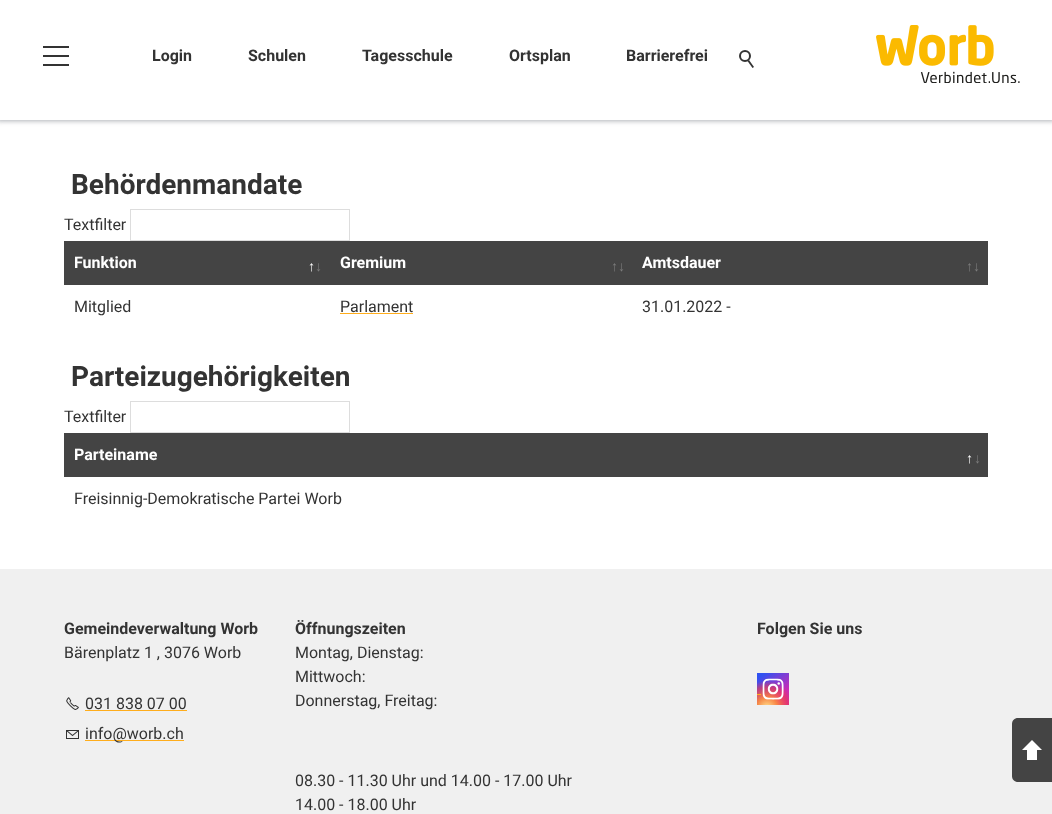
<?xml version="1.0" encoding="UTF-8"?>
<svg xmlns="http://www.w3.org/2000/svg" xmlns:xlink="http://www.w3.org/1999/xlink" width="1052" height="814">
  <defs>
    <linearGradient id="g1" gradientUnits="userSpaceOnUse" x1="760" y1="671" x2="786" y2="707"><stop offset="0.1" stop-color="#3051f1" /><stop offset="0.7" stop-color="#c92bb7" /></linearGradient>
    <radialGradient id="g2" gradientUnits="userSpaceOnUse" cx="767" cy="708" r="42"><stop offset="0" stop-color="#ffe993" /><stop offset="0.25" stop-color="#ff9138" stop-opacity="0.89" /><stop offset="0.5" stop-color="#f73c3c" stop-opacity="0.55" /><stop offset="0.65" stop-color="#f73c3c" stop-opacity="0" /></radialGradient>
  </defs>
  <rect width="100%" height="100%" fill="#ffffff" />
  <rect x="-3" y="-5" width="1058" height="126" fill="#aeb1b6" filter="blur(2.5px)" />
  <rect width="1052" height="120" fill="#ffffff" />
  <rect x="43" y="46" width="26" height="2" fill="#333333" />
  <rect x="43" y="55" width="26" height="2" fill="#333333" />
  <rect x="43" y="64" width="26" height="2" fill="#333333" />
  <circle cx="745" cy="56" r="5" fill="none" stroke="#333333" stroke-width="2" />
  <path d="M 749 60 l 5 7 l -1.5 1 l -5 -7 z" fill="#333333" />
  <image x="876" y="25" width="144" height="58" xlink:href="image1.png" />
  <rect x="130.5" y="209.5" width="219" height="31" fill="none" stroke="#dddddd" />
  <rect x="64" y="241" width="924" height="44" fill="#444444" />
  <rect x="340" y="313" width="73" height="1" fill="#ffad1c" />
  <rect x="130.5" y="401.5" width="219" height="31" fill="none" stroke="#dddddd" />
  <rect x="64" y="433" width="924" height="44" fill="#444444" />
  <rect y="569" width="1052" height="245" fill="#f0f0f0" />
  <image x="66" y="697" width="13" height="13" xlink:href="image2.png" />
  <rect x="85" y="710" width="102" height="1" fill="#ffad1c" />
  <image x="66" y="730" width="13" height="9" xlink:href="image3.png" />
  <rect x="85" y="740" width="99" height="1" fill="#ffad1c" />
  <rect x="757" y="673" width="32" height="32" fill="url(#g1)" />
  <rect x="757" y="681" width="32" height="24" fill="url(#g2)" />
  <image x="762" y="678" width="22" height="22" xlink:href="image4.png" />
  <rect x="757" y="694" width="4" height="1" fill="#ffad1c" />
  <path d="M 1018 718 h 34 v 64 h -34 c -3.5 0 -6 -2.5 -6 -6 v -52 c 0 -3.5 2.5 -6 6 -6 z" fill="#444444" />
  <path d="M 1042 750 h -20 l 10 -10 z" fill="#ffffff" />
  <rect x="1027" y="750" width="10" height="10" fill="#ffffff" />
  <text x="152" y="61" style="font-family: Roboto; font-size: 16px; font-weight: bold; fill: #333333">Login</text>
  <text x="248" y="61" style="font-family: Roboto; font-size: 16px; font-weight: bold; fill: #333333">Schulen</text>
  <text x="362" y="61" style="font-family: Roboto; font-size: 16px; font-weight: bold; fill: #333333">Tagesschule</text>
  <text x="509" y="61" style="font-family: Roboto; font-size: 16px; font-weight: bold; fill: #333333">Ortsplan</text>
  <text x="626" y="61" style="font-family: Roboto; font-size: 16px; font-weight: bold; fill: #333333">Barrierefrei</text>
  <text x="71" y="194" style="font-family: Roboto; font-size: 28px; font-weight: bold; fill: #333333">Behördenmandate</text>
  <text x="64" y="230" style="font-family: Roboto; font-size: 16px; fill: #333333">Textfilter</text>
  <text x="74" y="268" style="font-family: Roboto; font-size: 16px; font-weight: bold; fill: #ffffff">Funktion</text>
  <text x="308" y="271" style="font-family: Liberation Sans; font-size: 14px; font-weight: bold; fill: #ffffff">↑</text>
  <text x="315" y="271" style="font-family: Liberation Sans; font-size: 14px; font-weight: bold; fill: #7c7c7c">↓</text>
  <text x="340" y="268" style="font-family: Roboto; font-size: 16px; font-weight: bold; fill: #ffffff">Gremium</text>
  <text x="611" y="271" style="font-family: Liberation Sans; font-size: 14px; font-weight: bold; fill: #7c7c7c">↑↓</text>
  <text x="642" y="268" style="font-family: Roboto; font-size: 16px; font-weight: bold; fill: #ffffff">Amtsdauer</text>
  <text x="966" y="271" style="font-family: Liberation Sans; font-size: 14px; font-weight: bold; fill: #7c7c7c">↑↓</text>
  <text x="74" y="312" style="font-family: Roboto; font-size: 16px; fill: #333333">Mitglied</text>
  <text x="340" y="312" style="font-family: Roboto; font-size: 16px; fill: #333333">Parlament</text>
  <text x="642" y="312" style="font-family: Roboto; font-size: 16px; fill: #333333">31.01.2022 -</text>
  <text x="71" y="386" style="font-family: Roboto; font-size: 28px; font-weight: bold; fill: #333333">Parteizugehörigkeiten</text>
  <text x="64" y="422" style="font-family: Roboto; font-size: 16px; fill: #333333">Textfilter</text>
  <text x="74" y="460" style="font-family: Roboto; font-size: 16px; font-weight: bold; fill: #ffffff">Parteiname</text>
  <text x="966" y="463" style="font-family: Liberation Sans; font-size: 14px; font-weight: bold; fill: #ffffff">↑</text>
  <text x="974" y="463" style="font-family: Liberation Sans; font-size: 14px; font-weight: bold; fill: #7c7c7c">↓</text>
  <text x="74" y="504" style="font-family: Roboto; font-size: 16px; fill: #333333">Freisinnig-Demokratische Partei Worb</text>
  <text x="64" y="634" style="font-family: Roboto; font-size: 16px; font-weight: bold; fill: #333333">Gemeindeverwaltung Worb</text>
  <text x="64" y="658" style="font-family: Roboto; font-size: 16px; fill: #333333">Bärenplatz 1 , 3076 Worb</text>
  <text x="85" y="709" style="font-family: Roboto; font-size: 16px; fill: #333333">031 838 07 00</text>
  <text x="85" y="739" style="font-family: Roboto; font-size: 16px; fill: #333333">info@worb.ch</text>
  <text x="295" y="634" style="font-family: Roboto; font-size: 16px; font-weight: bold; fill: #333333">Öffnungszeiten</text>
  <text x="295" y="658" style="font-family: Roboto; font-size: 16px; fill: #333333">Montag, Dienstag:</text>
  <text x="295" y="682" style="font-family: Roboto; font-size: 16px; fill: #333333">Mittwoch:</text>
  <text x="295" y="706" style="font-family: Roboto; font-size: 16px; fill: #333333">Donnerstag, Freitag:</text>
  <text x="295" y="786" style="font-family: Roboto; font-size: 16px; fill: #333333">08.30 - 11.30 Uhr und 14.00 - 17.00 Uhr</text>
  <text x="295" y="810" style="font-family: Roboto; font-size: 16px; fill: #333333">14.00 - 18.00 Uhr</text>
  <text x="757" y="634" style="font-family: Roboto; font-size: 16px; font-weight: bold; fill: #333333">Folgen Sie uns</text>
</svg>
